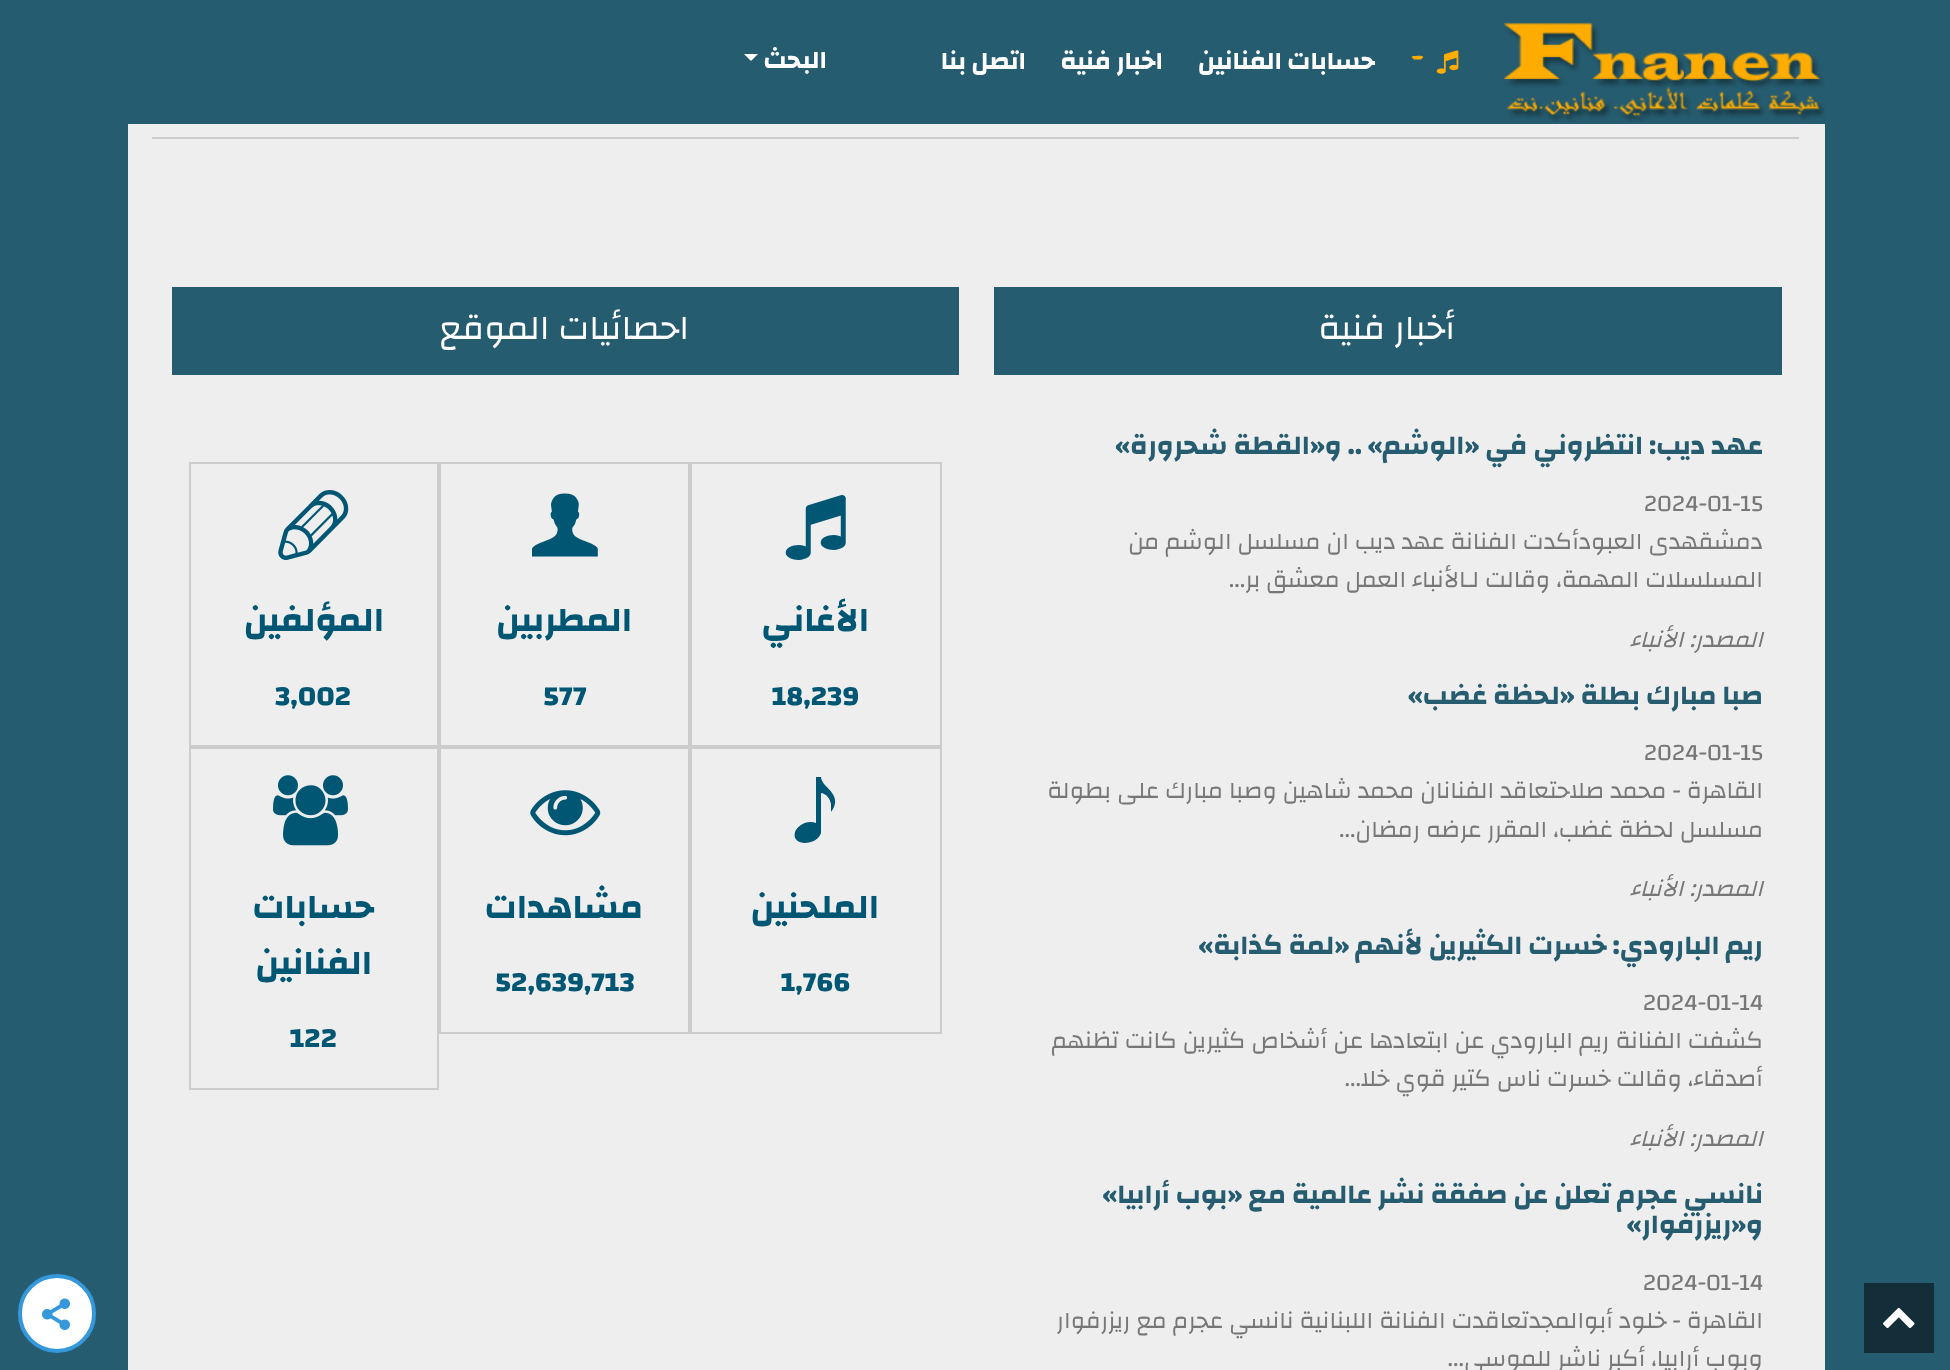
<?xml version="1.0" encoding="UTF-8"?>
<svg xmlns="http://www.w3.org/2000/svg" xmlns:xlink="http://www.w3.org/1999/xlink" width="1950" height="1370">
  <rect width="100%" height="100%" fill="#265c6f" />
  <image x="1503" y="22" width="322" height="100" xlink:href="image1.png" />
  <image x="1436" y="50" width="23" height="24" xlink:href="image2.png" />
  <path d="M 1414 56 c 2 0 8 -1 9.5 1 l -2.5 2.5 h -7 l -2.5 -2.5 c 0.5 -0.5 1.5 -1 2.5 -1 z" fill="#fead00" />
  <path d="M 744 54 h 14 l -7 7 z" fill="#ffffff" />
  <rect x="1864" y="1283" width="70" height="70" fill="#132e38" />
  <image x="1883" y="1307" width="32" height="22" xlink:href="image3.png" />
  <rect x="128" y="124" width="1697" height="1246" fill="#eeeeee" />
  <rect x="152" y="137" width="1647" height="2" fill="#cccccc" />
  <rect x="994" y="287" width="788" height="88" fill="#265c6f" />
  <rect x="172" y="287" width="787" height="88" fill="#265c6f" />
  <rect x="691" y="463" width="250" height="283" fill="none" stroke="#cccccc" stroke-width="2" />
  <image x="785" y="495" width="61" height="65" xlink:href="image4.png" />
  <rect x="440" y="463" width="249" height="283" fill="none" stroke="#cccccc" stroke-width="2" />
  <image x="532" y="493" width="66" height="64" xlink:href="image5.png" />
  <rect x="190" y="463" width="248" height="283" fill="none" stroke="#cccccc" stroke-width="2" />
  <image x="278" y="490" width="71" height="70" xlink:href="image6.png" />
  <rect x="691" y="748" width="250" height="285" fill="none" stroke="#cccccc" stroke-width="2" />
  <path d="M 821 777 c 0 6 8 11 11 16 c 4 5 4 11 1 16 l -2 3 v -8 c -1 -5 -4 -10 -10 -11 v 40 c -4 13 -30 14 -26 -1 c 1 -3 3 -5 6 -7 c 4 -3 10 -4 15 -2 v -46 z" fill="#005673" />
  <rect x="440" y="748" width="249" height="285" fill="none" stroke="#cccccc" stroke-width="2" />
  <image x="530" y="790" width="71" height="46" xlink:href="image7.png" />
  <rect x="190" y="748" width="248" height="341" fill="none" stroke="#cccccc" stroke-width="2" />
  <image x="273" y="775" width="75" height="71" xlink:href="image8.png" />
  <rect x="20" y="1276" width="74" height="75" rx="37" fill="#ffffff" stroke="#3498db" stroke-width="4" />
  <image x="42" y="1298" width="28" height="32" xlink:href="image9.png" />
  <text x="1375" y="69" style="font-family: Changa; font-size: 25.25px; font-weight: bold; direction: rtl; fill: #ffffff">حسابات الفنانين</text>
  <text x="1163" y="69" style="font-family: Changa; font-size: 25.25px; font-weight: bold; direction: rtl; fill: #ffffff">اخبار فنية</text>
  <text x="1026" y="69" style="font-family: Changa; font-size: 25.25px; font-weight: bold; direction: rtl; fill: #ffffff">اتصل بنا</text>
  <text x="827" y="68" style="font-family: Changa; font-size: 25.25px; font-weight: bold; direction: rtl; fill: #ffffff">البحث</text>
  <text x="1455" y="339" style="font-family: Changa; font-size: 35px; direction: rtl; fill: #ffffff">أخبار فنية</text>
  <text x="1763" y="454" style="font-family: Changa; font-size: 27.4px; font-weight: bold; direction: rtl; fill: #265c6f">عهد ديب: انتظروني في «الوشم» .. و«القطة شحرورة»</text>
  <text x="1644" y="511" style="font-family: Changa; font-size: 23.8px; fill: #777777">2024-01-15</text>
  <text x="1763" y="549" style="font-family: Changa; font-size: 23.8px; direction: rtl; fill: #777777">دمشقهدى العبودأكدت الفنانة عهد ديب ان مسلسل الوشم من</text>
  <text x="1763" y="587" style="font-family: Changa; font-size: 23.8px; direction: rtl; fill: #777777">المسلسلات المهمة، وقالت لـالأنباء العمل معشق بر...</text>
  <text x="1763" y="647" style="font-family: Changa; font-size: 23.8px; font-style: italic; direction: rtl; fill: #777777">المصدر: الأنباء</text>
  <text x="1763" y="704" style="font-family: Changa; font-size: 27.4px; font-weight: bold; direction: rtl; fill: #265c6f">صبا مبارك بطلة «لحظة غضب»</text>
  <text x="1644" y="760" style="font-family: Changa; font-size: 23.8px; fill: #777777">2024-01-15</text>
  <text x="1763" y="798" style="font-family: Changa; font-size: 23.8px; direction: rtl; fill: #777777">القاهرة - محمد صلاحتعاقد الفنانان محمد شاهين وصبا مبارك على بطولة</text>
  <text x="1763" y="837" style="font-family: Changa; font-size: 23.8px; direction: rtl; fill: #777777">مسلسل لحظة غضب، المقرر عرضه رمضان...</text>
  <text x="1763" y="896" style="font-family: Changa; font-size: 23.8px; font-style: italic; direction: rtl; fill: #777777">المصدر: الأنباء</text>
  <text x="1763" y="954" style="font-family: Changa; font-size: 27.4px; font-weight: bold; direction: rtl; fill: #265c6f">ريم البارودي: خسرت الكثيرين لأنهم «لمة كذابة»</text>
  <text x="1643" y="1010" style="font-family: Changa; font-size: 23.8px; fill: #777777">2024-01-14</text>
  <text x="1763" y="1048" style="font-family: Changa; font-size: 23.8px; direction: rtl; fill: #777777">كشفت الفنانة ريم البارودي عن ابتعادها عن أشخاص كثيرين كانت تظنهم</text>
  <text x="1763" y="1086" style="font-family: Changa; font-size: 23.8px; direction: rtl; fill: #777777">أصدقاء، وقالت خسرت ناس كتير قوي خلا...</text>
  <text x="1763" y="1146" style="font-family: Changa; font-size: 23.8px; font-style: italic; direction: rtl; fill: #777777">المصدر: الأنباء</text>
  <text x="1763" y="1203" style="font-family: Changa; font-size: 27.4px; font-weight: bold; direction: rtl; fill: #265c6f">نانسي عجرم تعلن عن صفقة نشر عالمية مع «بوب أرابيا»</text>
  <text x="1763" y="1233" style="font-family: Changa; font-size: 27.4px; font-weight: bold; direction: rtl; fill: #265c6f">و«ريزرفوار»</text>
  <text x="1643" y="1290" style="font-family: Changa; font-size: 23.8px; fill: #777777">2024-01-14</text>
  <text x="1763" y="1328" style="font-family: Changa; font-size: 23.8px; direction: rtl; fill: #777777">القاهرة - خلود أبوالمجدتعاقدت الفنانة اللبنانية نانسي عجرم مع ريزرفوار</text>
  <text x="1763" y="1366" style="font-family: Changa; font-size: 23.8px; direction: rtl; fill: #777777">وبوب أرابيا، أكبر ناشر للموسي...</text>
  <text x="689" y="339" style="font-family: Changa; font-size: 35px; direction: rtl; fill: #ffffff">احصائيات الموقع</text>
  <text x="869" y="631" style="font-family: Changa; font-size: 35px; font-weight: bold; direction: rtl; fill: #005673">الأغاني</text>
  <text x="772" y="705" style="font-family: Changa; font-size: 28px; font-weight: bold; fill: #005673">18,239</text>
  <text x="632" y="631" style="font-family: Changa; font-size: 35px; font-weight: bold; direction: rtl; fill: #005673">المطربين</text>
  <text x="543" y="705" style="font-family: Changa; font-size: 28px; font-weight: bold; fill: #005673">577</text>
  <text x="384" y="631" style="font-family: Changa; font-size: 35px; font-weight: bold; direction: rtl; fill: #005673">المؤلفين</text>
  <text x="275" y="705" style="font-family: Changa; font-size: 28px; font-weight: bold; fill: #005673">3,002</text>
  <text x="879" y="918" style="font-family: Changa; font-size: 35px; font-weight: bold; direction: rtl; fill: #005673">الملحنين</text>
  <text x="781" y="991" style="font-family: Changa; font-size: 28px; font-weight: bold; fill: #005673">1,766</text>
  <text x="643" y="918" style="font-family: Changa; font-size: 35px; font-weight: bold; direction: rtl; fill: #005673">مشاهدات</text>
  <text x="495" y="991" style="font-family: Changa; font-size: 28px; font-weight: bold; fill: #005673">52,639,713</text>
  <text x="374" y="918" style="font-family: Changa; font-size: 35px; font-weight: bold; direction: rtl; fill: #005673">حسابات</text>
  <text x="372" y="974" style="font-family: Changa; font-size: 35px; font-weight: bold; direction: rtl; fill: #005673">الفنانين</text>
  <text x="290" y="1047" style="font-family: Changa; font-size: 28px; font-weight: bold; fill: #005673">122</text>
</svg>
